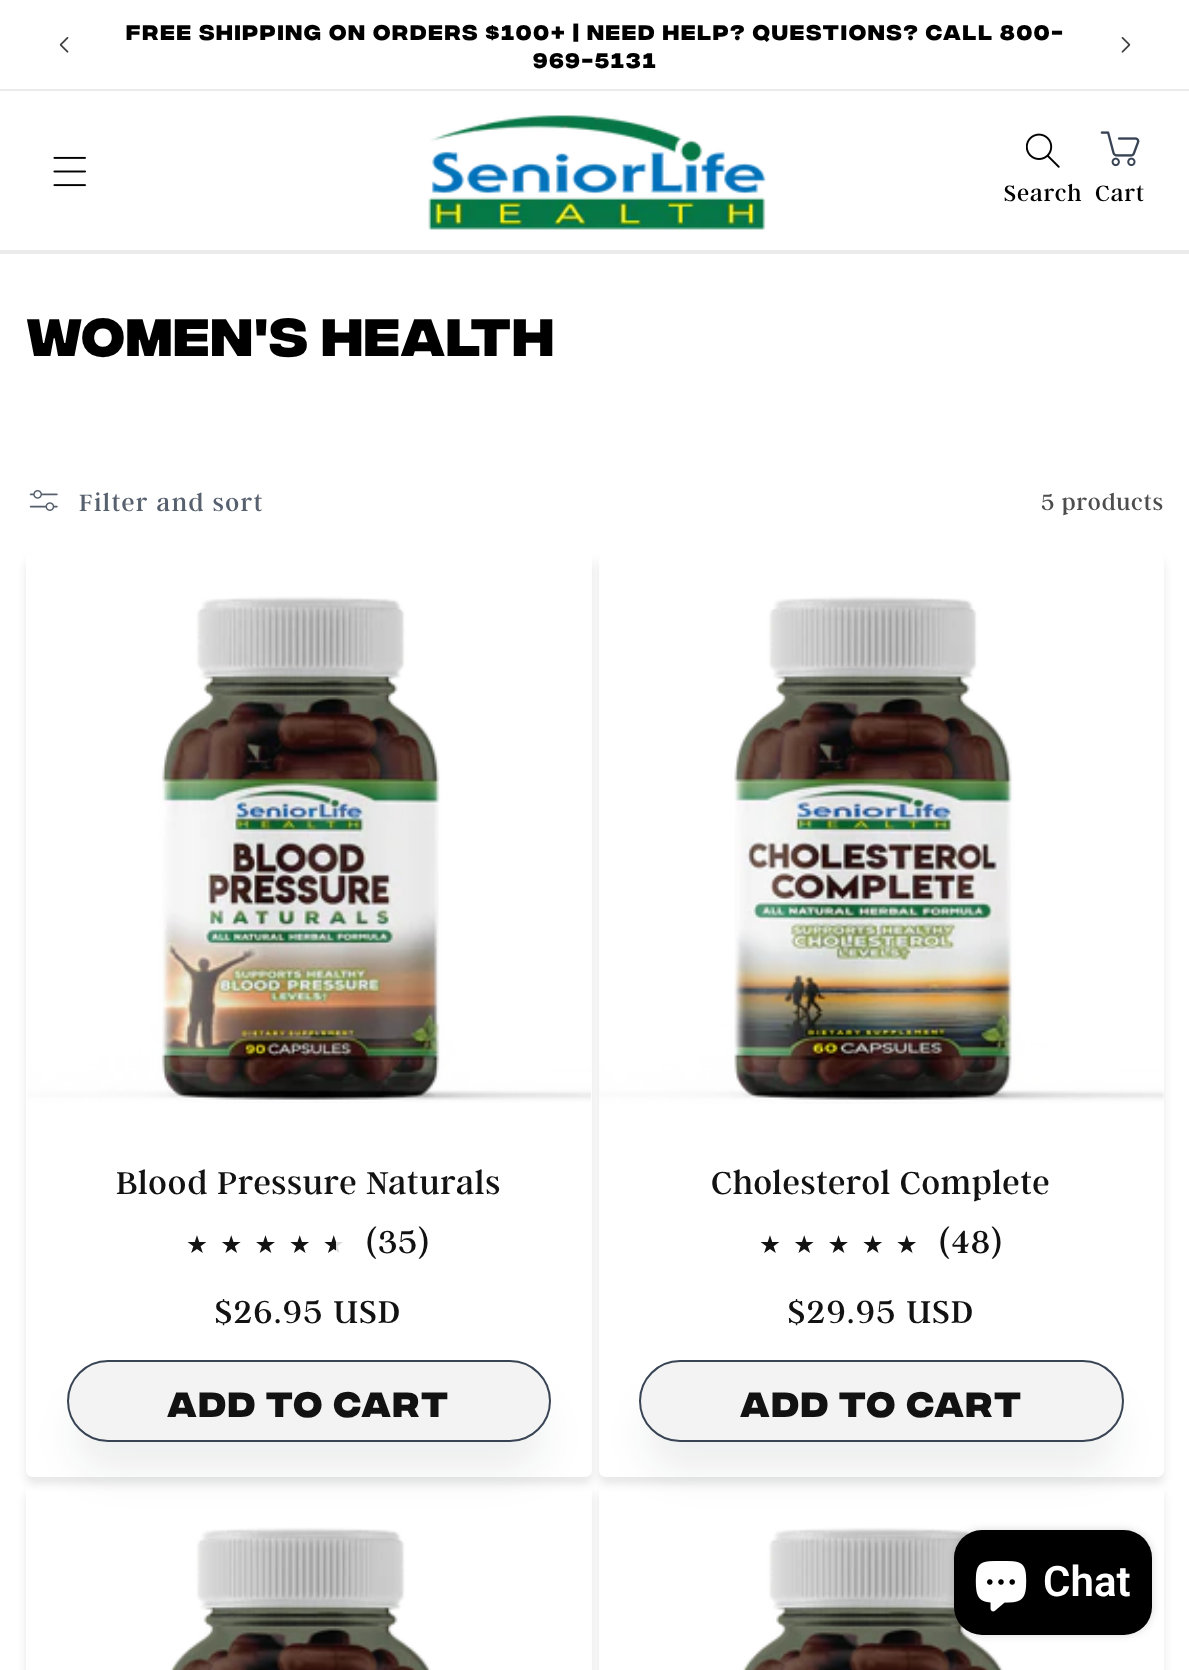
<?xml version="1.0" encoding="UTF-8"?>
<svg xmlns="http://www.w3.org/2000/svg" xmlns:xlink="http://www.w3.org/1999/xlink" width="1189" height="1670">
  <defs>
    <clipPath id="clip1"><path d="M 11 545 h 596 v 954 h -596 z m 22 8 h 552 c 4 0 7 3 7 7 v 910 c 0 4 -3 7 -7 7 h -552 c -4 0 -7 -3 -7 -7 v -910 c 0 -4 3 -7 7 -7 z" clip-rule="evenodd" /></clipPath>
    <clipPath id="clip2"><path d="M 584 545 h 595 v 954 h -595 z m 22 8 h 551 c 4 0 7 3 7 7 v 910 c 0 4 -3 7 -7 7 h -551 c -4 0 -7 -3 -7 -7 v -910 c 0 -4 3 -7 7 -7 z" clip-rule="evenodd" /></clipPath>
    <clipPath id="clip3"><path d="M 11 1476 h 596 v 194 h -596 z m 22 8 h 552 c 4 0 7 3 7 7 v 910 c 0 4 -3 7 -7 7 h -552 c -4 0 -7 -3 -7 -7 v -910 c 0 -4 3 -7 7 -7 z" clip-rule="evenodd" /></clipPath>
    <clipPath id="clip4"><path d="M 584 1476 h 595 v 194 h -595 z m 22 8 h 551 c 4 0 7 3 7 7 v 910 c 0 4 -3 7 -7 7 h -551 c -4 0 -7 -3 -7 -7 v -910 c 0 -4 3 -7 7 -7 z" clip-rule="evenodd" /></clipPath>
    <linearGradient id="g1" gradientUnits="userSpaceOnUse" x1="186" y1="1245" x2="358" y2="1245"><stop offset="0.87" stop-color="#121212" /><stop offset="0.87" stop-color="#dbdbdb" /></linearGradient>
    <linearGradient id="g2" gradientUnits="userSpaceOnUse" x1="759" y1="1245" x2="930" y2="1245"><stop offset="0.93" stop-color="#121212" /><stop offset="0.93" stop-color="#dbdbdb" /></linearGradient>
  </defs>
  <rect width="100%" height="100%" fill="#ffffff" />
  <rect y="89" width="1189" height="2" fill="#ebebeb" />
  <image x="59" y="37" width="10" height="16" xlink:href="image1.png" />
  <image x="1121" y="37" width="10" height="16" xlink:href="image2.png" />
  <image x="53" y="156" width="33" height="31" xlink:href="image3.png" />
  <image x="428" y="115" width="338" height="115" xlink:href="image4.png" />
  <image x="1026" y="133" width="34" height="35" xlink:href="image5.png" />
  <image x="1100" y="131" width="40" height="36" xlink:href="image6.png" />
  <rect y="250" width="1189" height="4" fill="#ebebeb" />
  <image x="29" y="490" width="29" height="21" xlink:href="image7.png" />
  <g clip-path="url(#clip1)">
    <rect x="26" y="560" width="566" height="924" rx="7" fill="#121212" fill-opacity="0.1" filter="blur(4.5px)" />
  </g>
  <image x="27" y="596" width="564" height="507" xlink:href="image8.png" />
  <rect x="74" y="1402" width="470" height="68" rx="34" fill="#101828" fill-opacity="0.08" filter="blur(21px)" />
  <rect x="68" y="1361" width="482" height="80" rx="40" fill="#f3f3f3" stroke="#384454" stroke-width="2" />
  <g clip-path="url(#clip2)">
    <rect x="599" y="560" width="565" height="924" rx="7" fill="#121212" fill-opacity="0.1" filter="blur(4.5px)" />
  </g>
  <image x="599" y="596" width="565" height="508" xlink:href="image9.png" />
  <rect x="646" y="1402" width="471" height="68" rx="34" fill="#101828" fill-opacity="0.08" filter="blur(21px)" />
  <rect x="640" y="1361" width="483" height="80" rx="40" fill="#f3f3f3" stroke="#384454" stroke-width="2" />
  <g clip-path="url(#clip3)">
    <rect x="26" y="1491" width="566" height="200" rx="7" fill="#121212" fill-opacity="0.1" filter="blur(4.5px)" />
  </g>
  <image x="170" y="1527" width="261" height="143" xlink:href="image10.png" />
  <g clip-path="url(#clip4)">
    <rect x="599" y="1491" width="565" height="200" rx="7" fill="#121212" fill-opacity="0.1" filter="blur(4.5px)" />
  </g>
  <image x="742" y="1527" width="261" height="143" xlink:href="image11.png" />
  <rect x="954" y="1530" width="198" height="105" rx="28" fill="#000000" fill-opacity="0.15" filter="blur(4.5px)" />
  <rect x="954" y="1530" width="198" height="105" rx="28" fill="#000000" />
  <image x="975" y="1561" width="52" height="51" xlink:href="image12.png" />
  <text x="126" y="40" style="font-family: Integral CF; font-size: 21px; font-weight: bold; letter-spacing: 1.75px; fill: #000000">FREE SHIPPING ON ORDERS $100+ | NEED HELP? QUESTIONS? CALL 800-</text>
  <text x="533" y="68" style="font-family: Integral CF; font-size: 21px; font-weight: bold; letter-spacing: 1.75px; fill: #000000">969-5131</text>
  <text x="1004" y="201" style="font-family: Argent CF; font-size: 24.5px; letter-spacing: 1.05px; fill: #000000">Search</text>
  <text x="1095" y="201" style="font-family: Argent CF; font-size: 24.5px; letter-spacing: 1.05px; fill: #000000">Cart</text>
  <text x="26" y="356" style="font-family: Integral CF; font-size: 52.5px; font-weight: bold; letter-spacing: 1.05px; fill: #000000">Women's Health</text>
  <text x="79" y="511" style="font-family: Argent CF; font-size: 26.25px; letter-spacing: 1.75px; fill: #56606e">Filter and sort</text>
  <text x="1041" y="510" style="font-family: Argent CF; font-size: 24.5px; letter-spacing: 1.05px; fill: #4d4d4d">5 products</text>
  <text x="116" y="1194" style="font-family: Argent CF; font-size: 35px; letter-spacing: 1.05px; fill: #121212">Blood Pressure Naturals</text>
  <text x="186" y="1253" style="font-family: DejaVu Sans; font-size: 24.5px; letter-spacing: 12.25px; fill: url(#g1)">★★★★★</text>
  <text x="366" y="1253" style="font-family: Argent CF; font-size: 35px; letter-spacing: 1px; fill: #121212">(35)</text>
  <text x="215" y="1323" style="font-family: Argent CF; font-size: 35px; letter-spacing: 1.75px; fill: #121212">$26.95 USD</text>
  <text x="167" y="1417" style="font-family: Integral CF; font-size: 35px; font-weight: bold; letter-spacing: 1.75px; fill: #121212">ADD TO CART</text>
  <text x="711" y="1194" style="font-family: Argent CF; font-size: 35px; letter-spacing: 1.05px; fill: #121212">Cholesterol Complete</text>
  <text x="759" y="1253" style="font-family: DejaVu Sans; font-size: 24.5px; letter-spacing: 12.25px; fill: url(#g2)">★★★★★</text>
  <text x="939" y="1253" style="font-family: Argent CF; font-size: 35px; letter-spacing: 1px; fill: #121212">(48)</text>
  <text x="788" y="1323" style="font-family: Argent CF; font-size: 35px; letter-spacing: 1.75px; fill: #121212">$29.95 USD</text>
  <text x="740" y="1417" style="font-family: Integral CF; font-size: 35px; font-weight: bold; letter-spacing: 1.75px; fill: #121212">ADD TO CART</text>
  <text x="1043" y="1596" style="font-family: Roboto; font-size: 42px; font-weight: 600; fill: #ffffff">Chat</text>
</svg>
